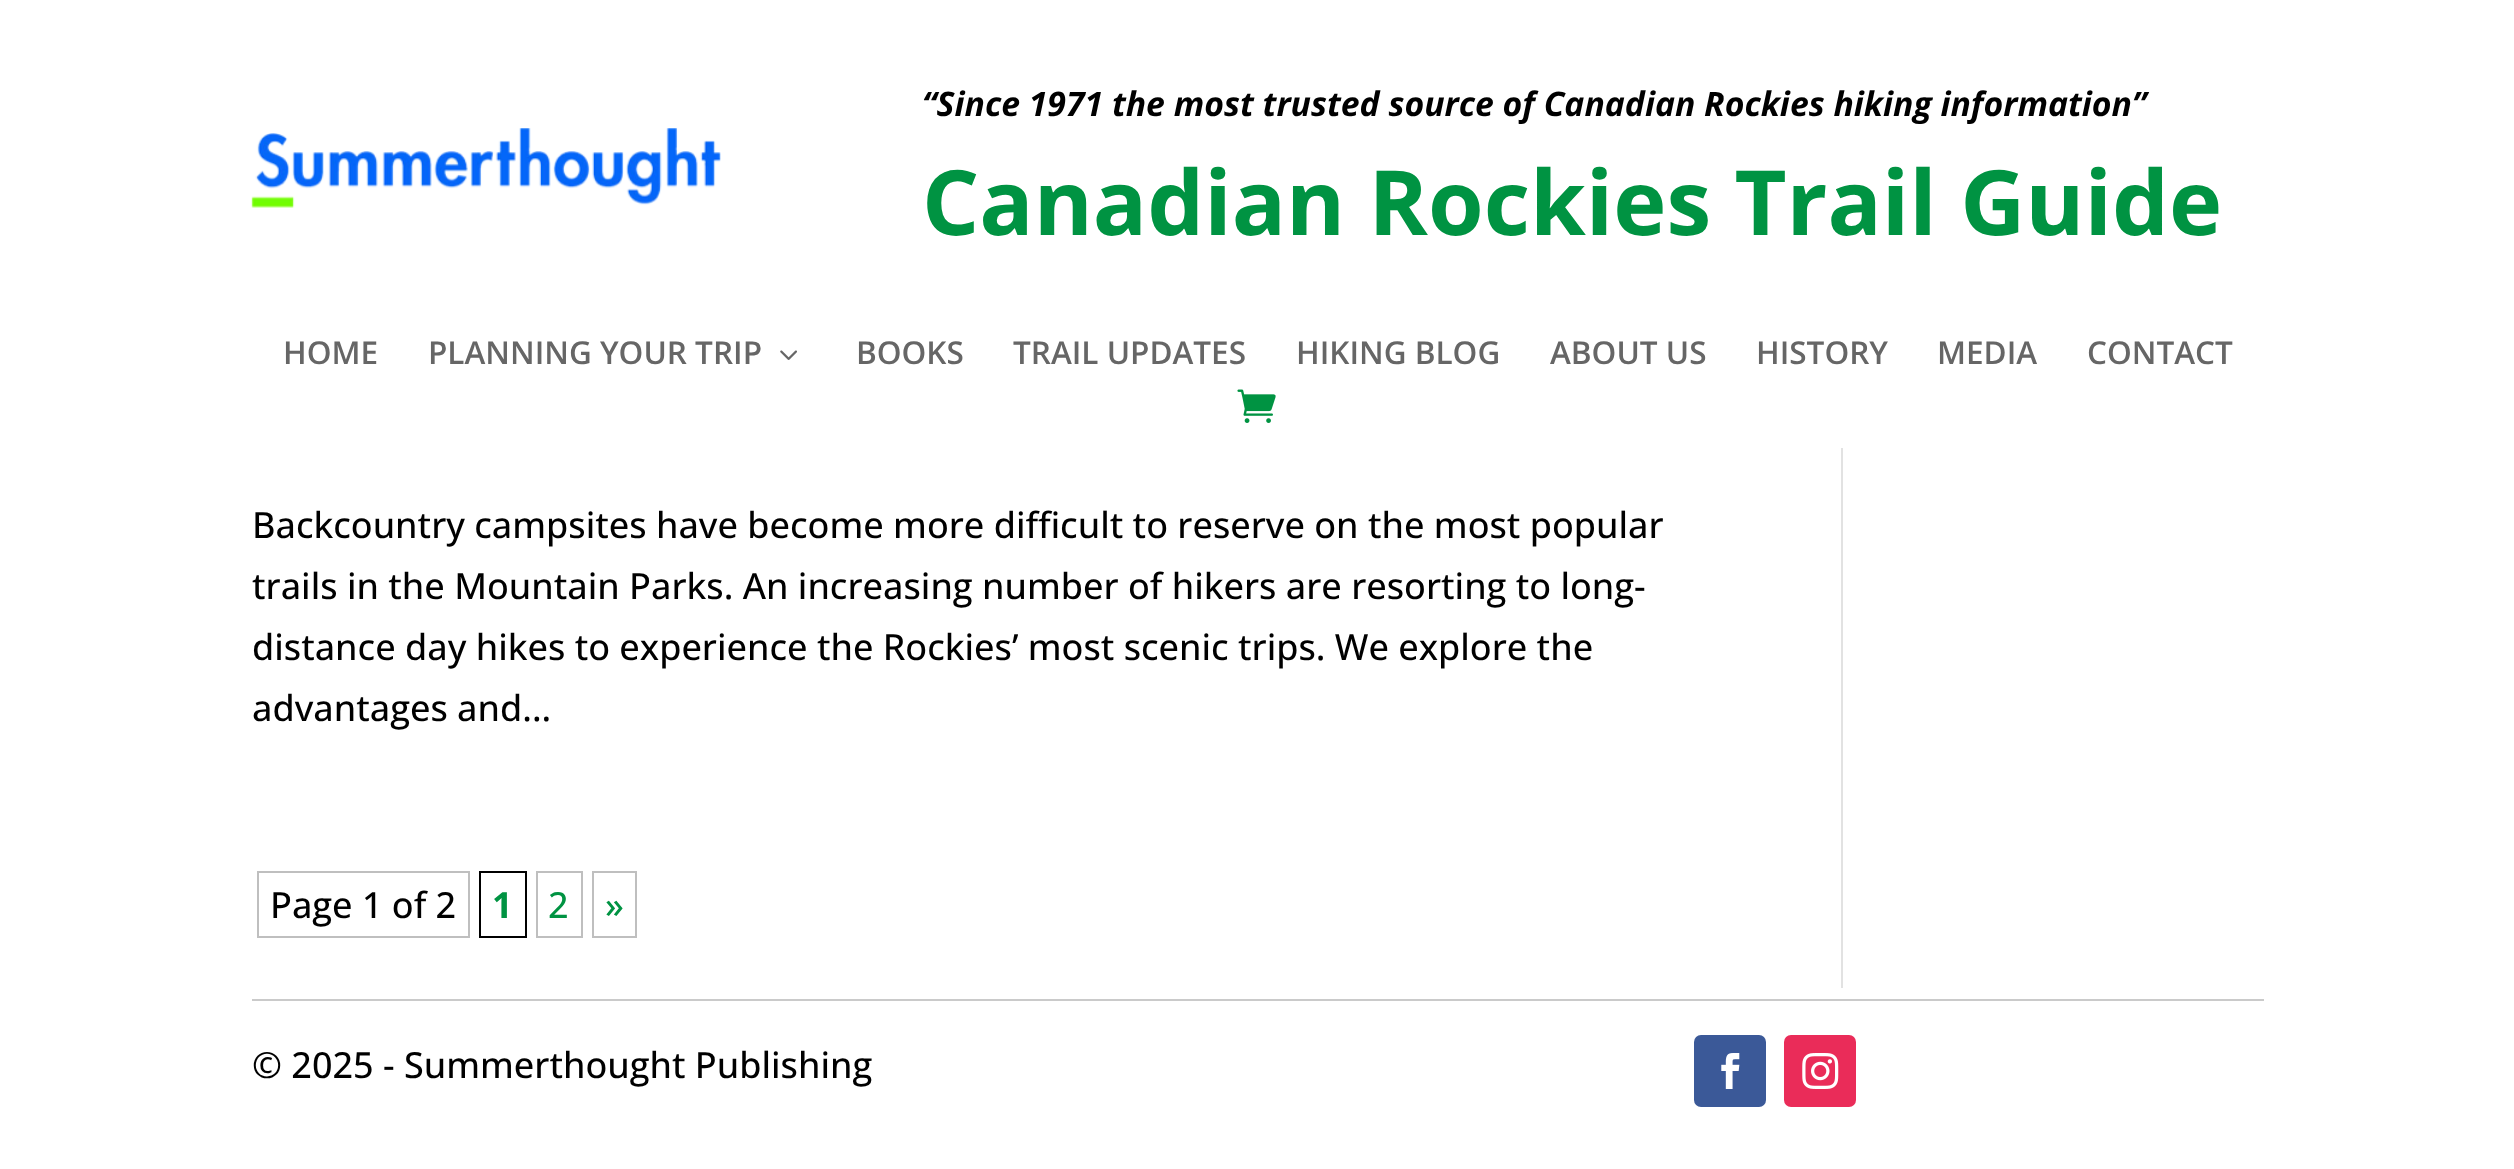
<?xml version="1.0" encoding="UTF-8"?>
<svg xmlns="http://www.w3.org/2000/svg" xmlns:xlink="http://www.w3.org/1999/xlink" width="2514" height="1169">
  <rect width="100%" height="100%" fill="#ffffff" />
  <image x="251" y="128" width="470" height="80" xlink:href="image1.png" />
  <image x="780" y="350" width="17" height="10" xlink:href="image2.png" />
  <image x="1237" y="389" width="39" height="34" xlink:href="image3.png" />
  <rect x="258" y="872" width="211" height="65" fill="none" stroke="#bfbfbf" stroke-width="2" />
  <rect x="480" y="872" width="46" height="65" fill="none" stroke="#000000" stroke-width="2" />
  <rect x="537" y="872" width="45" height="65" fill="none" stroke="#bfbfbf" stroke-width="2" />
  <rect x="593" y="872" width="43" height="65" fill="none" stroke="#bfbfbf" stroke-width="2" />
  <rect x="1841" y="448" width="2" height="540" fill="#e2e2e2" />
  <rect x="252" y="999" width="2012" height="2" fill="#cacaca" />
  <rect x="1694" y="1035" width="72" height="72" rx="7" fill="#3b5998" />
  <image x="1721" y="1053" width="19" height="36" xlink:href="image4.png" />
  <rect x="1784" y="1035" width="72" height="72" rx="7" fill="#ea2c59" />
  <image x="1802" y="1053" width="37" height="36" xlink:href="image5.png" />
  <text x="922" y="116" style="font-family: Open Sans; font-size: 33.75px; font-weight: bold; font-style: italic; fill: #000000">“Since 1971 the most trusted source of Canadian Rockies hiking information”</text>
  <text x="922" y="235" style="font-family: Open Sans; font-size: 90px; font-weight: bold; fill: #009342">Canadian Rockies Trail Guide</text>
  <text x="283" y="364" style="font-family: Open Sans; font-size: 31.5px; font-weight: 600; fill: #666666">HOME</text>
  <text x="428" y="364" style="font-family: Open Sans; font-size: 31.5px; font-weight: 600; fill: #666666">PLANNING YOUR TRIP</text>
  <text x="856" y="364" style="font-family: Open Sans; font-size: 31.5px; font-weight: 600; fill: #666666">BOOKS</text>
  <text x="1013" y="364" style="font-family: Open Sans; font-size: 31.5px; font-weight: 600; fill: #666666">TRAIL UPDATES</text>
  <text x="1296" y="364" style="font-family: Open Sans; font-size: 31.5px; font-weight: 600; fill: #666666">HIKING BLOG</text>
  <text x="1550" y="364" style="font-family: Open Sans; font-size: 31.5px; font-weight: 600; fill: #666666">ABOUT US</text>
  <text x="1756" y="364" style="font-family: Open Sans; font-size: 31.5px; font-weight: 600; fill: #666666">HISTORY</text>
  <text x="1937" y="364" style="font-family: Open Sans; font-size: 31.5px; font-weight: 600; fill: #666666">MEDIA</text>
  <text x="2087" y="364" style="font-family: Open Sans; font-size: 31.5px; font-weight: 600; fill: #666666">CONTACT</text>
  <text x="252" y="538" style="font-family: Open Sans; font-size: 36px; font-weight: 500; fill: #000000">Backcountry campsites have become more difficult to reserve on the most popular</text>
  <text x="252" y="599" style="font-family: Open Sans; font-size: 36px; font-weight: 500; fill: #000000">trails in the Mountain Parks. An increasing number of hikers are resorting to long-</text>
  <text x="252" y="660" style="font-family: Open Sans; font-size: 36px; font-weight: 500; fill: #000000">distance day hikes to experience the Rockies’ most scenic trips. We explore the</text>
  <text x="252" y="721" style="font-family: Open Sans; font-size: 36px; font-weight: 500; fill: #000000">advantages and...</text>
  <text x="270" y="918" style="font-family: Open Sans; font-size: 36px; font-weight: 500; fill: #000000">Page 1 of 2</text>
  <text x="492" y="918" style="font-family: Open Sans; font-size: 36px; font-weight: bold; fill: #009342">1</text>
  <text x="548" y="918" style="font-family: Open Sans; font-size: 36px; font-weight: 500; fill: #009342">2</text>
  <text x="605" y="918" style="font-family: Open Sans; font-size: 36px; font-weight: 500; fill: #009342">»</text>
  <text x="252" y="1078" style="font-family: Open Sans; font-size: 36px; font-weight: 500; fill: #000000">© 2025 - Summerthought Publishing</text>
</svg>
